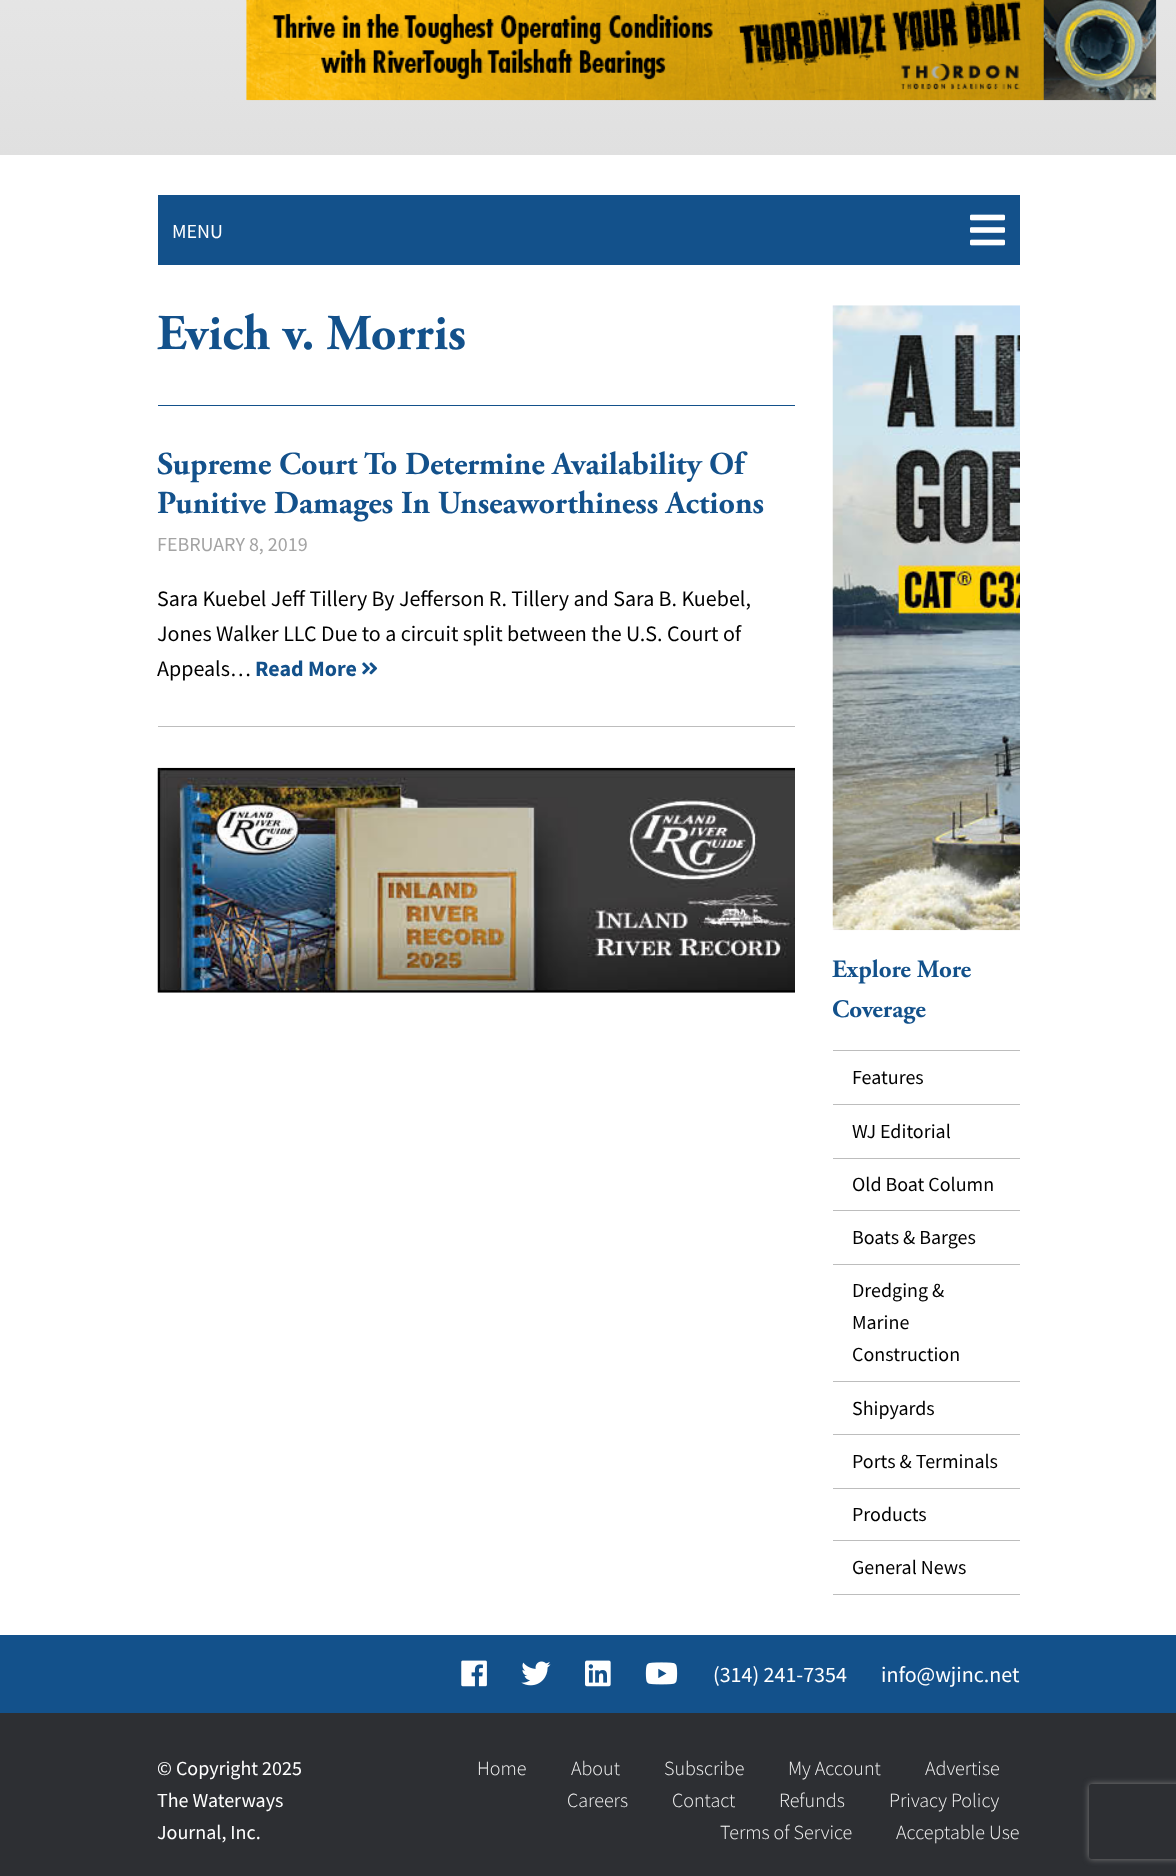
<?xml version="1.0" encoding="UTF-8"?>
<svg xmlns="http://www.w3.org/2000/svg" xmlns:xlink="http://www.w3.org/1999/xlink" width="1176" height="1876">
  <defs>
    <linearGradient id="g1" gradientUnits="userSpaceOnUse" x1="588" y1="-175" x2="588" y2="155"><stop offset="0" stop-color="#ebebeb" /><stop offset="1" stop-color="#e0e0e0" /></linearGradient>
    <clipPath id="clip1"><path d="M 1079 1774 h 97 v 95 h -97 z m 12.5 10 h 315 c 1.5 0 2.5 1 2.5 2.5 v 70 c 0 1.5 -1 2.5 -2.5 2.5 h -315 c -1.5 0 -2.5 -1 -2.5 -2.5 v -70 c 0 -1.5 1 -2.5 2.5 -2.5 z" clip-rule="evenodd" /></clipPath>
  </defs>
  <rect width="100%" height="100%" fill="#ffffff" />
  <rect width="1176" height="155" fill="url(#g1)" />
  <image x="246" y="0" width="911" height="101" xlink:href="image1.png" />
  <rect x="158" y="195" width="862" height="70" fill="#13518b" />
  <image x="970" y="214" width="35" height="32" xlink:href="image2.png" />
  <rect x="158" y="405" width="637" height="1" fill="#13518b" />
  <rect x="158" y="726" width="637" height="1" fill="#bdbdbd" />
  <image x="362" y="662" width="16" height="13" xlink:href="image3.png" />
  <image x="157" y="767" width="638" height="226" xlink:href="image4.png" />
  <image x="832" y="305" width="188" height="626" xlink:href="image5.png" />
  <rect x="833" y="1050" width="187" height="1" fill="#bdbdbd" />
  <rect x="833" y="1104" width="187" height="1" fill="#bdbdbd" />
  <rect x="833" y="1158" width="187" height="1" fill="#bdbdbd" />
  <rect x="833" y="1210" width="187" height="1" fill="#bdbdbd" />
  <rect x="833" y="1264" width="187" height="1" fill="#bdbdbd" />
  <rect x="833" y="1381" width="187" height="1" fill="#bdbdbd" />
  <rect x="833" y="1434" width="187" height="1" fill="#bdbdbd" />
  <rect x="833" y="1488" width="187" height="1" fill="#bdbdbd" />
  <rect x="833" y="1540" width="187" height="1" fill="#bdbdbd" />
  <rect x="833" y="1594" width="187" height="1" fill="#bdbdbd" />
  <rect y="1635" width="1176" height="78" fill="#13518b" />
  <image x="461" y="1660" width="26" height="27" xlink:href="image6.png" />
  <image x="521" y="1661" width="30" height="25" xlink:href="image7.png" />
  <image x="585" y="1660" width="26" height="27" xlink:href="image8.png" />
  <image x="645" y="1662" width="33" height="23" xlink:href="image9.png" />
  <rect y="1713" width="1176" height="163" fill="#2d2f33" />
  <g clip-path="url(#clip1)">
    <rect x="1089" y="1784" width="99" height="75" rx="2.5" fill="#808080" filter="blur(3px)" />
  </g>
  <text x="172" y="238" style="font-family: Source Sans Pro; font-size: 20px; fill: #ffffff">MENU</text>
  <text x="157" y="349" style="font-family: Adobe Garamond; font-size: 50px; font-weight: bold; fill: #13518b">Evich v. Morris</text>
  <text x="157" y="474" style="font-family: Adobe Garamond; font-size: 32px; font-weight: bold; fill: #13518b">Supreme Court To Determine Availability Of</text>
  <text x="157" y="513" style="font-family: Adobe Garamond; font-size: 32px; font-weight: bold; fill: #13518b">Punitive Damages In Unseaworthiness Actions</text>
  <text x="157" y="551" style="font-family: Source Sans Pro; font-size: 20px; fill: #a4a4a4">FEBRUARY 8, 2019</text>
  <text x="157" y="606" style="font-family: Source Sans Pro; font-size: 22px; fill: #000000">Sara Kuebel Jeff Tillery By Jefferson R. Tillery and Sara B. Kuebel,</text>
  <text x="157" y="641" style="font-family: Source Sans Pro; font-size: 22px; fill: #000000">Jones Walker LLC Due to a circuit split between the U.S. Court of</text>
  <text x="157" y="676" style="font-family: Source Sans Pro; font-size: 22px; fill: #000000">Appeals…</text>
  <text x="255" y="676" style="font-family: Source Sans Pro; font-size: 22px; font-weight: bold; fill: #13518b">Read More</text>
  <text x="832" y="977" style="font-family: Adobe Garamond; font-size: 25px; font-weight: bold; fill: #13518b">Explore More</text>
  <text x="832" y="1017" style="font-family: Adobe Garamond; font-size: 25px; font-weight: bold; fill: #13518b">Coverage</text>
  <text x="852" y="1084" style="font-family: Source Sans Pro; font-size: 20px; fill: #000000">Features</text>
  <text x="852" y="1138" style="font-family: Source Sans Pro; font-size: 20px; fill: #000000">WJ Editorial</text>
  <text x="852" y="1191" style="font-family: Source Sans Pro; font-size: 20px; fill: #000000">Old Boat Column</text>
  <text x="852" y="1244" style="font-family: Source Sans Pro; font-size: 20px; fill: #000000">Boats &amp; Barges</text>
  <text x="852" y="1297" style="font-family: Source Sans Pro; font-size: 20px; fill: #000000">Dredging &amp;</text>
  <text x="852" y="1329" style="font-family: Source Sans Pro; font-size: 20px; fill: #000000">Marine</text>
  <text x="852" y="1361" style="font-family: Source Sans Pro; font-size: 20px; fill: #000000">Construction</text>
  <text x="852" y="1415" style="font-family: Source Sans Pro; font-size: 20px; fill: #000000">Shipyards</text>
  <text x="852" y="1468" style="font-family: Source Sans Pro; font-size: 20px; fill: #000000">Ports &amp; Terminals</text>
  <text x="852" y="1521" style="font-family: Source Sans Pro; font-size: 20px; fill: #000000">Products</text>
  <text x="852" y="1574" style="font-family: Source Sans Pro; font-size: 20px; fill: #000000">General News</text>
  <text x="713" y="1682" style="font-family: Source Sans Pro; font-size: 22px; fill: #ffffff">(314) 241-7354</text>
  <text x="881" y="1682" style="font-family: Source Sans Pro; font-size: 22px; fill: #ffffff">info@wjinc.net</text>
  <text x="157" y="1775" style="font-family: Source Sans Pro; font-size: 20px; fill: #ffffff">© Copyright 2025</text>
  <text x="157" y="1807" style="font-family: Source Sans Pro; font-size: 20px; fill: #ffffff">The Waterways</text>
  <text x="157" y="1839" style="font-family: Source Sans Pro; font-size: 20px; fill: #ffffff">Journal, Inc.</text>
  <text x="477" y="1775" style="font-family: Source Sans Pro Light; font-size: 20px; font-weight: 300; fill: #f6f6f6">Home</text>
  <text x="571" y="1775" style="font-family: Source Sans Pro Light; font-size: 20px; font-weight: 300; fill: #f6f6f6">About</text>
  <text x="664" y="1775" style="font-family: Source Sans Pro Light; font-size: 20px; font-weight: 300; fill: #f6f6f6">Subscribe</text>
  <text x="788" y="1775" style="font-family: Source Sans Pro Light; font-size: 20px; font-weight: 300; fill: #f6f6f6">My Account</text>
  <text x="925" y="1775" style="font-family: Source Sans Pro Light; font-size: 20px; font-weight: 300; fill: #f6f6f6">Advertise</text>
  <text x="567" y="1807" style="font-family: Source Sans Pro Light; font-size: 20px; font-weight: 300; fill: #f6f6f6">Careers</text>
  <text x="672" y="1807" style="font-family: Source Sans Pro Light; font-size: 20px; font-weight: 300; fill: #f6f6f6">Contact</text>
  <text x="779" y="1807" style="font-family: Source Sans Pro Light; font-size: 20px; font-weight: 300; fill: #f6f6f6">Refunds</text>
  <text x="889" y="1807" style="font-family: Source Sans Pro Light; font-size: 20px; font-weight: 300; fill: #f6f6f6">Privacy Policy</text>
  <text x="720" y="1839" style="font-family: Source Sans Pro Light; font-size: 20px; font-weight: 300; fill: #f6f6f6">Terms of Service</text>
  <text x="896" y="1839" style="font-family: Source Sans Pro Light; font-size: 20px; font-weight: 300; fill: #f6f6f6">Acceptable Use</text>
</svg>
